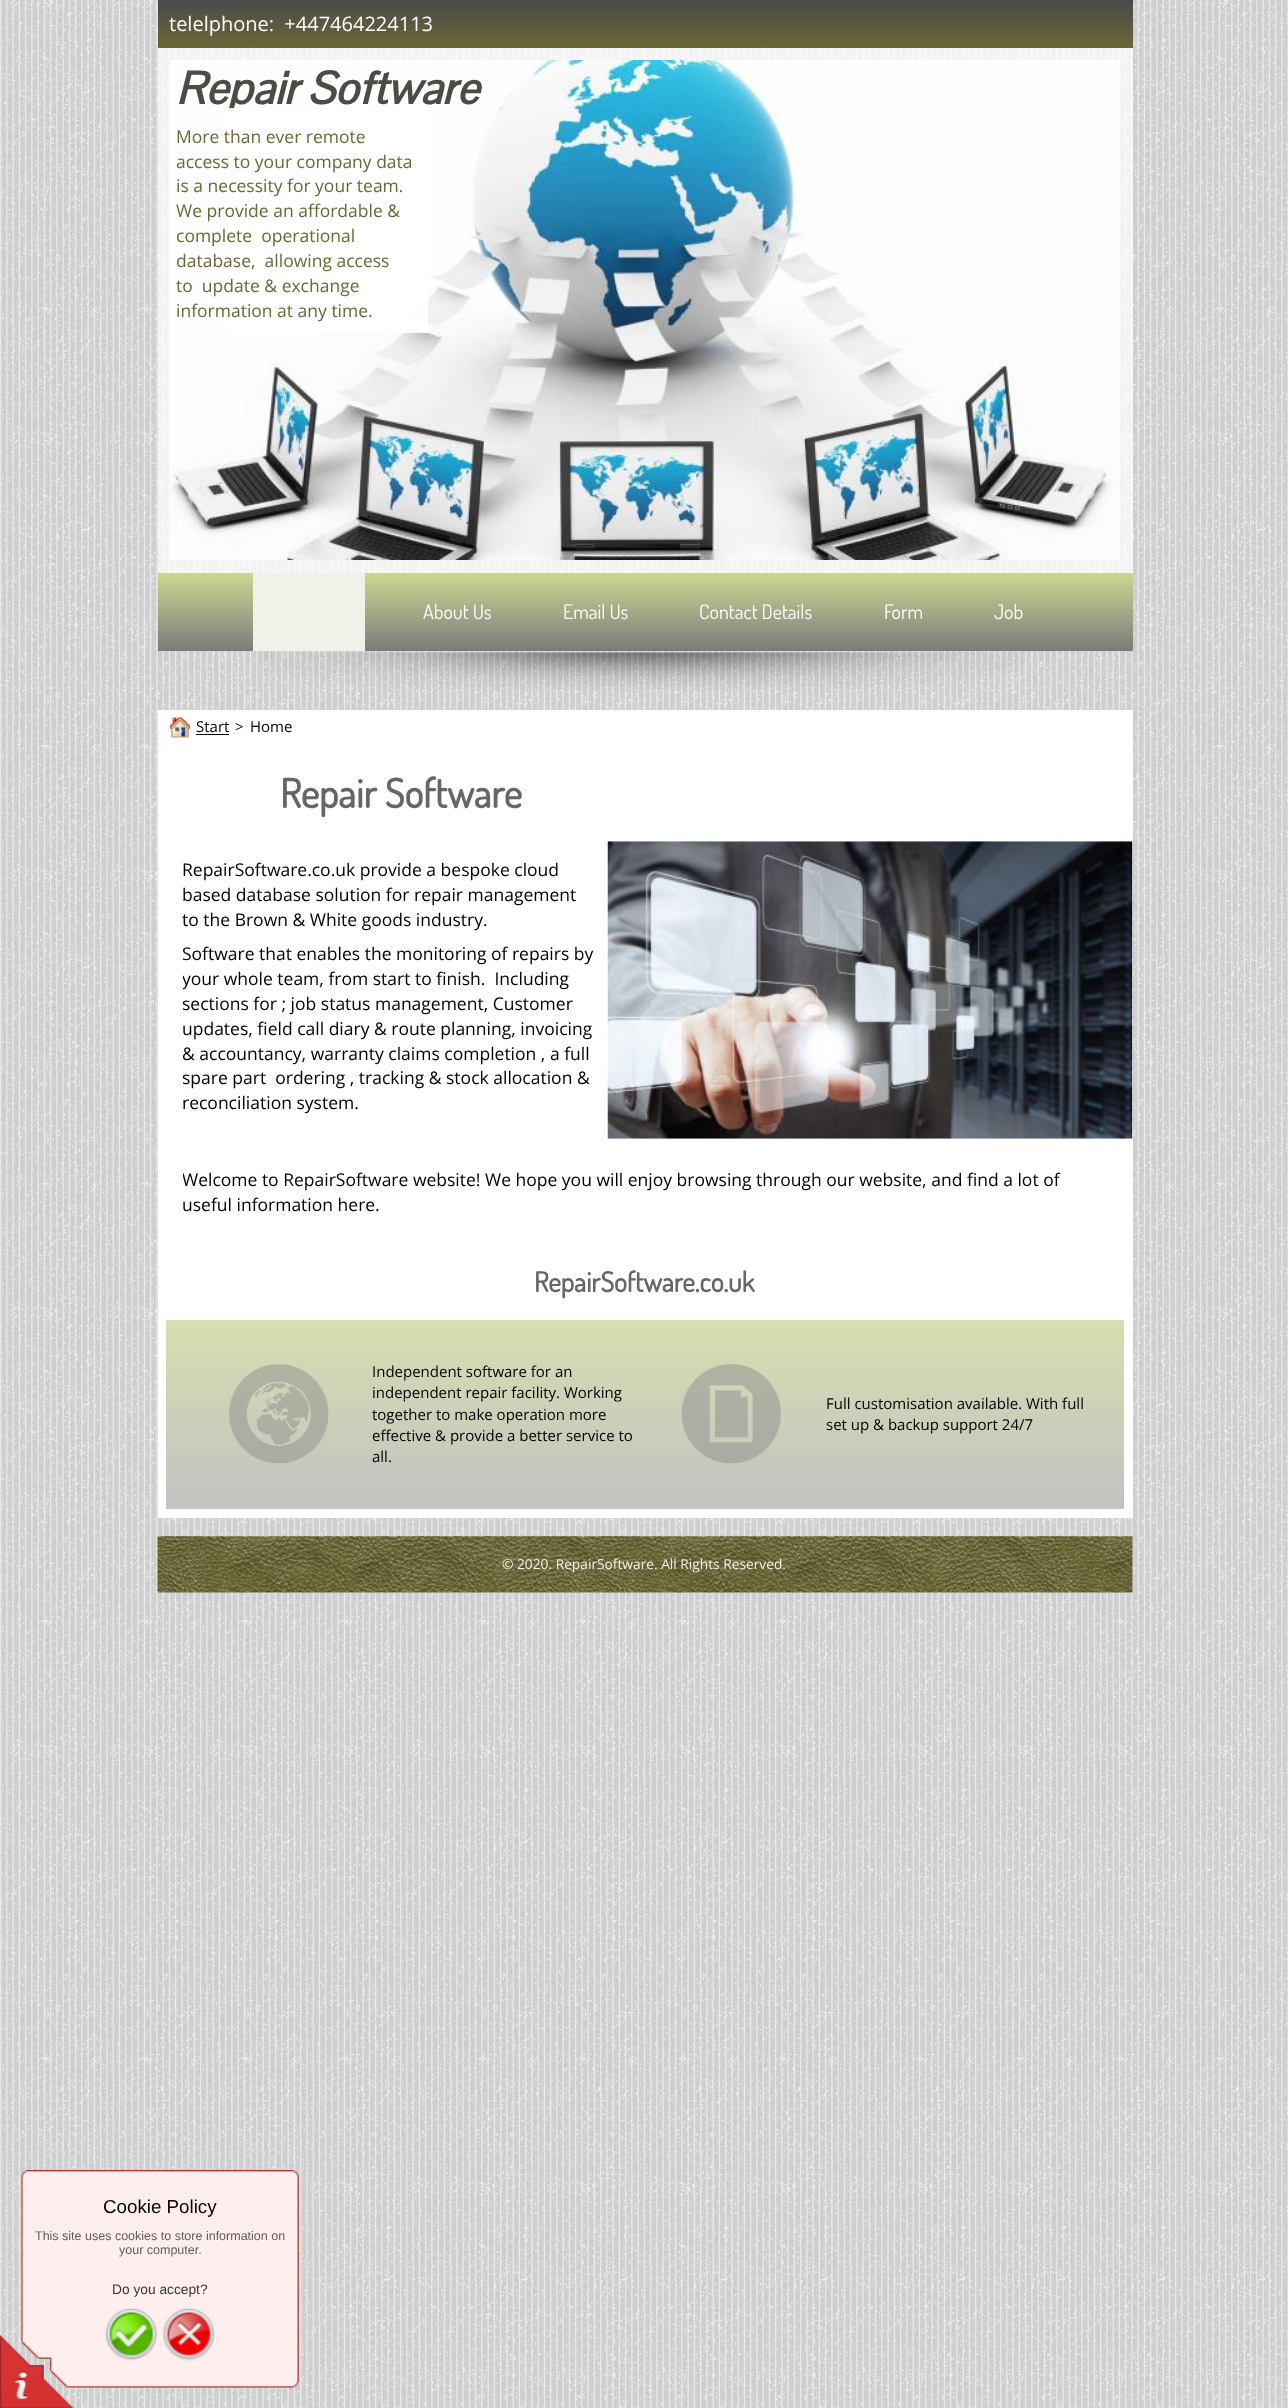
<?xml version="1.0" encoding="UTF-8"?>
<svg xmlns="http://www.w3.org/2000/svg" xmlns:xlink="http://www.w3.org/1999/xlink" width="1288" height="2408">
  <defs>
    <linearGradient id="g1" gradientUnits="userSpaceOnUse" x1="645" y1="0" x2="645" y2="48"><stop offset="0" stop-color="#4a4a4a" /><stop offset="1" stop-color="#6a6836" /></linearGradient>
    <linearGradient id="g2" gradientUnits="userSpaceOnUse" x1="645" y1="651" x2="645" y2="573"><stop offset="0" stop-color="#7b7b7b" /><stop offset="1" stop-color="#cdd792" /></linearGradient>
    <linearGradient id="g3" gradientUnits="userSpaceOnUse" x1="645" y1="1509" x2="645" y2="1320"><stop offset="0" stop-color="#c2c2c2" /><stop offset="1" stop-color="#d8deb0" /></linearGradient>
    <clipPath id="clip1"><rect x="183" y="848" width="412" height="277" /></clipPath>
    <clipPath id="clip2"><rect x="183" y="1158" width="925" height="68" /></clipPath>
  </defs>
  <rect width="100%" height="100%" fill="#f0f0f0" />
  <image x="0" y="0" width="1288" height="2408" xlink:href="image1.png" />
  <rect x="158" width="975" height="48" fill="url(#g1)" />
  <rect x="158" y="48" width="975" height="525" fill="#ffffff" fill-opacity="0.75" />
  <image x="170" y="60" width="950" height="500" xlink:href="image2.png" />
  <rect x="158" y="573" width="975" height="78" fill="url(#g2)" />
  <rect x="253" y="573" width="112" height="78" fill="#f0f2ea" />
  <image x="261" y="652" width="762" height="38" xlink:href="image3.png" />
  <rect x="158" y="710" width="975" height="808" fill="#ffffff" />
  <image x="170" y="717" width="20" height="21" xlink:href="image4.png" />
  <rect x="196" y="734" width="33" height="1" fill="#000000" />
  <image x="607" y="841" width="526" height="298" xlink:href="image5.png" />
  <rect x="166" y="1320" width="958" height="189" fill="url(#g3)" />
  <image x="229" y="1364" width="100" height="100" xlink:href="image6.png" />
  <image x="681" y="1364" width="100" height="100" xlink:href="image7.png" />
  <image x="157" y="1536" width="976" height="57" xlink:href="image8.png" />
  <image x="0" y="2335" width="74" height="73" xlink:href="image12.png" />
  <image x="21" y="2170" width="278" height="218" xlink:href="image9.png" />
  <image x="105" y="2308" width="52" height="53" xlink:href="image10.png" />
  <image x="163" y="2308" width="52" height="53" xlink:href="image11.png" />
  <text x="169" y="31" style="font-family: Open Sans; font-size: 20px; fill: #ffffff" xml:space="preserve">telelphone:  +447464224113</text>
  <text x="176" y="104" style="font-family: Pontano Sans; font-size: 45px; font-weight: bold; font-style: italic; fill: #484d45">Repair Software</text>
  <rect x="227" y="108" width="201" height="225" fill="#ffffff" fill-opacity="0.9" />
  <text x="176" y="143" style="font-family: Open Sans; font-size: 17.5px; fill: #6a6836">More than ever remote</text>
  <text x="176" y="168" style="font-family: Open Sans; font-size: 17.5px; fill: #6a6836">access to your company data</text>
  <text x="176" y="192" style="font-family: Open Sans; font-size: 17.5px; fill: #6a6836">is a necessity for your team.</text>
  <text x="176" y="217" style="font-family: Open Sans; font-size: 17.5px; fill: #6a6836">We provide an affordable &amp;</text>
  <text x="176" y="242" style="font-family: Open Sans; font-size: 17.5px; fill: #6a6836" xml:space="preserve">complete  operational</text>
  <text x="176" y="267" style="font-family: Open Sans; font-size: 17.5px; fill: #6a6836" xml:space="preserve">database,  allowing access</text>
  <text x="176" y="292" style="font-family: Open Sans; font-size: 17.5px; fill: #6a6836" xml:space="preserve">to  update &amp; exchange</text>
  <text x="176" y="317" style="font-family: Open Sans; font-size: 17.5px; fill: #6a6836">information at any time.</text>
  <text x="423" y="619" style="font-family: Dosis; font-size: 20px; fill: #ffffff">About Us</text>
  <text x="563" y="619" style="font-family: Dosis; font-size: 20px; fill: #ffffff">Email Us</text>
  <text x="699" y="619" style="font-family: Dosis; font-size: 20px; fill: #ffffff">Contact Details</text>
  <text x="884" y="619" style="font-family: Dosis; font-size: 20px; fill: #ffffff">Form</text>
  <text x="994" y="619" style="font-family: Dosis; font-size: 20px; fill: #ffffff">Job</text>
  <text x="196" y="732" style="font-family: Open Sans; font-size: 15px; fill: #000000">Start</text>
  <text x="235" y="732" style="font-family: Open Sans; font-size: 15px; fill: #000000">&gt;</text>
  <text x="250" y="732" style="font-family: Open Sans; font-size: 15px; fill: #000000">Home</text>
  <text x="280" y="808" style="font-family: Dosis; font-size: 40px; font-weight: bold; fill: #666666">Repair Software</text>
  <text x="182" y="876" style="font-family: Open Sans; font-size: 17.5px; fill: #000000">RepairSoftware.co.uk provide a bespoke cloud</text>
  <text x="182" y="901" style="font-family: Open Sans; font-size: 17.5px; fill: #000000">based database solution for repair management</text>
  <text x="182" y="926" style="font-family: Open Sans; font-size: 17.5px; fill: #000000">to the Brown &amp; White goods industry.</text>
  <text x="182" y="960" style="font-family: Open Sans; font-size: 17.5px; fill: #000000">Software that enables the monitoring of repairs by</text>
  <g clip-path="url(#clip1)">
    <text x="182" y="985" style="font-family: Open Sans; font-size: 17.5px; fill: #000000" xml:space="preserve">your whole team, from start to finish.  Including</text>
    <text x="182" y="1010" style="font-family: Open Sans; font-size: 17.5px; fill: #000000">sections for ; job status management, Customer</text>
  </g>
  <text x="182" y="1035" style="font-family: Open Sans; font-size: 17.5px; fill: #000000">updates, field call diary &amp; route planning, invoicing</text>
  <text x="182" y="1060" style="font-family: Open Sans; font-size: 17.5px; fill: #000000">&amp; accountancy, warranty claims completion , a full</text>
  <g clip-path="url(#clip1)">
    <text x="182" y="1084" style="font-family: Open Sans; font-size: 17.5px; fill: #000000" xml:space="preserve">spare part  ordering , tracking &amp; stock allocation &amp;</text>
  </g>
  <text x="182" y="1109" style="font-family: Open Sans; font-size: 17.5px; fill: #000000">reconciliation system.</text>
  <g clip-path="url(#clip2)">
    <text x="182" y="1186" style="font-family: Open Sans; font-size: 17.5px; fill: #000000">Welcome to RepairSoftware website! We hope you will enjoy browsing through our website, and find a lot of</text>
  </g>
  <text x="182" y="1211" style="font-family: Open Sans; font-size: 17.5px; fill: #000000">useful information here.</text>
  <text x="534" y="1292" style="font-family: Dosis; font-size: 27.5px; font-weight: bold; fill: #666666">RepairSoftware.co.uk</text>
  <text x="372" y="1377" style="font-family: Open Sans; font-size: 15px; fill: #000000">Independent software for an</text>
  <text x="372" y="1398" style="font-family: Open Sans; font-size: 15px; fill: #000000">independent repair facility. Working</text>
  <text x="372" y="1420" style="font-family: Open Sans; font-size: 15px; fill: #000000">together to make operation more</text>
  <text x="372" y="1441" style="font-family: Open Sans; font-size: 15px; fill: #000000">effective &amp; provide a better service to</text>
  <text x="372" y="1462" style="font-family: Open Sans; font-size: 15px; fill: #000000">all.</text>
  <text x="826" y="1409" style="font-family: Open Sans; font-size: 15px; fill: #000000">Full customisation available. With full</text>
  <text x="826" y="1430" style="font-family: Open Sans; font-size: 15px; fill: #000000">set up &amp; backup support 24/7</text>
  <text x="502" y="1569" style="font-family: Open Sans; font-size: 13.75px; fill: #f0f2ea">© 2020. RepairSoftware. All Rights Reserved.</text>
  <text x="103" y="2213" style="font-family: Liberation Sans; font-size: 18.75px; fill: #000000">Cookie Policy</text>
  <text x="35" y="2240" style="font-family: Liberation Sans; font-size: 12.5px; fill: #5e5e5e">This site uses cookies to store information on</text>
  <text x="119" y="2254" style="font-family: Liberation Sans; font-size: 12.5px; fill: #5e5e5e">your computer.</text>
  <text x="112" y="2294" style="font-family: Liberation Sans; font-size: 13.75px; fill: #383838">Do you accept?</text>
</svg>
